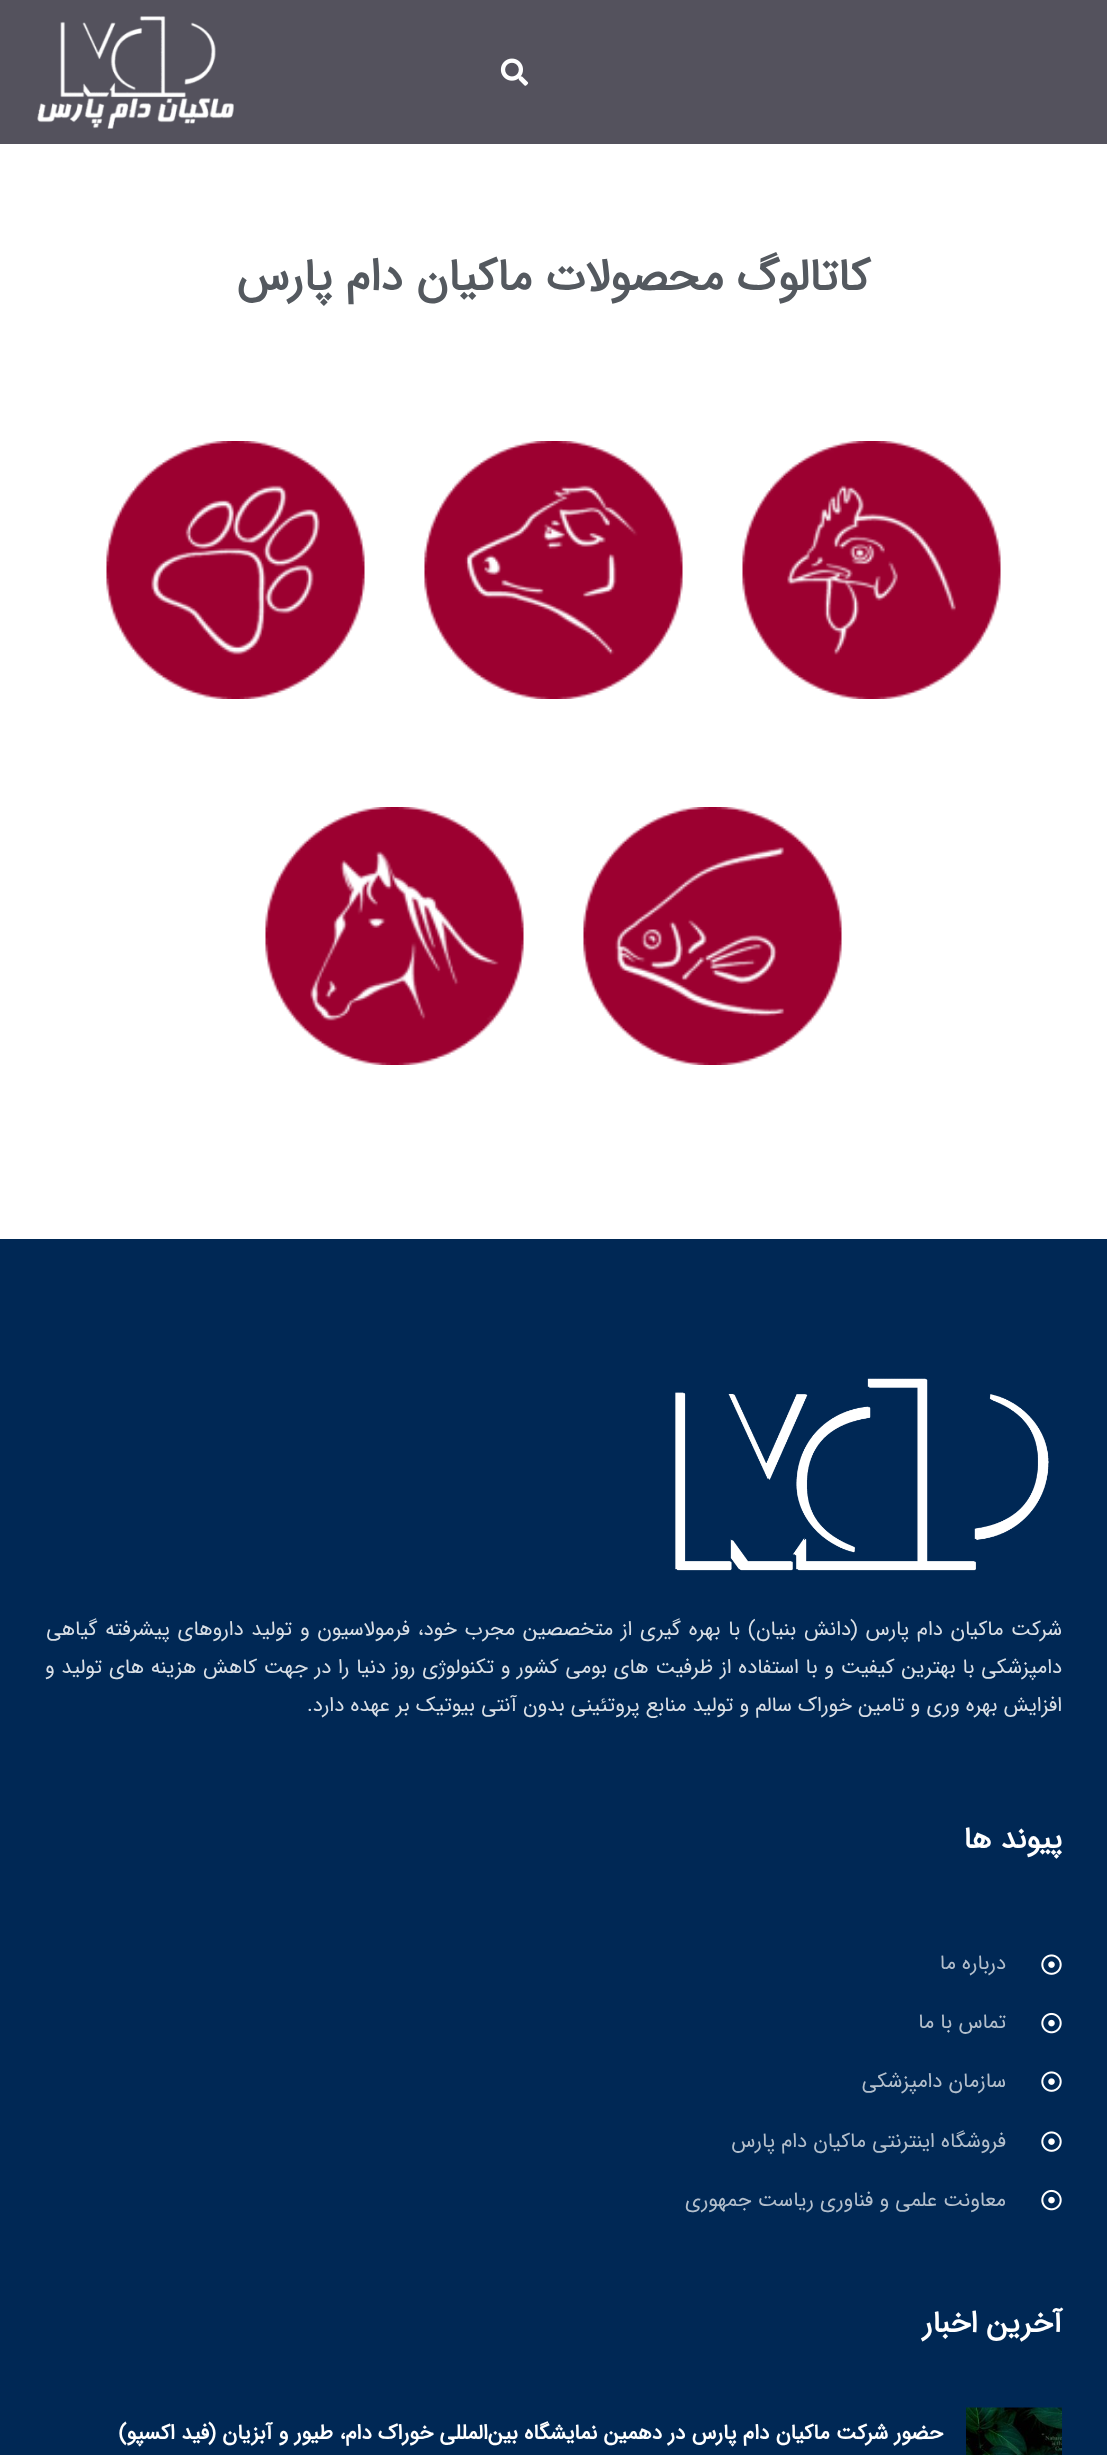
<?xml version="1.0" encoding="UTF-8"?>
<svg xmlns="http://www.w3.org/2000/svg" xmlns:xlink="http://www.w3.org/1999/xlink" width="1107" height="2455">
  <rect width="100%" height="100%" fill="#ffffff" />
  <rect width="1107" height="144" fill="#54525d" />
  <image x="500" y="58" width="29" height="28" xlink:href="image1.png" />
  <image x="37" y="16" width="197" height="113" xlink:href="image2.png" />
  <image x="742" y="441" width="259" height="258" xlink:href="image3.png" />
  <image x="424" y="441" width="259" height="258" xlink:href="image4.png" />
  <image x="106" y="441" width="259" height="258" xlink:href="image5.png" />
  <image x="583" y="807" width="259" height="258" xlink:href="image6.png" />
  <image x="265" y="807" width="259" height="258" xlink:href="image7.png" />
  <rect y="1239" width="1107" height="1216" fill="#002855" />
  <image x="675" y="1378" width="374" height="193" xlink:href="image8.png" />
  <image x="1041" y="1954" width="21" height="21" xlink:href="image9.png" />
  <image x="1041" y="2012" width="21" height="22" xlink:href="image10.png" />
  <image x="1041" y="2071" width="21" height="21" xlink:href="image9.png" />
  <image x="1041" y="2131" width="21" height="21" xlink:href="image9.png" />
  <image x="1041" y="2189" width="21" height="22" xlink:href="image10.png" />
  <image x="966" y="2407" width="96" height="48" xlink:href="image11.png" />
  <text x="870" y="290" style="font-family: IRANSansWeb; font-size: 45px; font-weight: bold; direction: rtl; fill: #54595f">کاتالوگ محصولات</text>
  <text x="532" y="290" style="font-family: IRANSansWeb; font-size: 45px; font-weight: bold; direction: rtl; fill: #54595f">ماکیان دام پارس</text>
  <text x="1062" y="1635" word-spacing="1.6" style="font-family: IRANSansWeb; font-size: 20.5px; direction: rtl; fill: #d9dfe6">شرکت ماکیان دام پارس (دانش بنیان) با بهره گیری از متخصصین مجرب خود، فرمولاسیون و تولید داروهای پیشرفته گیاهی</text>
  <text x="1062" y="1673" word-spacing="0.6" style="font-family: IRANSansWeb; font-size: 20.5px; direction: rtl; fill: #d9dfe6">دامپزشکی با بهترین کیفیت و با استفاده از ظرفیت های بومی کشور و تکنولوژی روز دنیا را در جهت کاهش هزینه های تولید و</text>
  <text x="1062" y="1711" style="font-family: IRANSansWeb; font-size: 20.5px; direction: rtl; fill: #d9dfe6">افزایش بهره وری و تامین خوراک سالم و تولید منابع پروتئینی بدون آنتی بیوتیک بر عهده دارد.</text>
  <text x="1062" y="1848" style="font-family: IRANSansWeb; font-size: 30px; font-weight: bold; direction: rtl; fill: #ffffff">پیوند ها</text>
  <text x="1006" y="1969" style="font-family: 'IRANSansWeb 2'; font-size: 20.5px; direction: rtl; fill: #b3bfcc">درباره ما</text>
  <text x="1006" y="2028" style="font-family: 'IRANSansWeb 2'; font-size: 20.5px; direction: rtl; fill: #b3bfcc">تماس با ما</text>
  <text x="1006" y="2087" style="font-family: 'IRANSansWeb 2'; font-size: 20.5px; direction: rtl; fill: #b3bfcc">سازمان دامپزشکی</text>
  <text x="1006" y="2147" style="font-family: 'IRANSansWeb 2'; font-size: 20.5px; direction: rtl; fill: #b3bfcc">فروشگاه اینترنتی ماکیان دام پارس</text>
  <text x="1006" y="2206" style="font-family: 'IRANSansWeb 2'; font-size: 20.5px; direction: rtl; fill: #b3bfcc">معاونت علمی و فناوری ریاست جمهوری</text>
  <text x="1062" y="2332" style="font-family: IRANSansWeb; font-size: 30px; font-weight: bold; direction: rtl; fill: #ffffff">آخرین اخبار</text>
  <text x="943" y="2439" style="font-family: 'IRANSansWeb 2'; font-size: 21px; font-weight: bold; direction: rtl; fill: #ffffff">حضور شرکت ماکیان دام پارس در دهمین نمایشگاه بین‌المللی خوراک دام، طیور و آبزیان (فید اکسپو)</text>
</svg>
